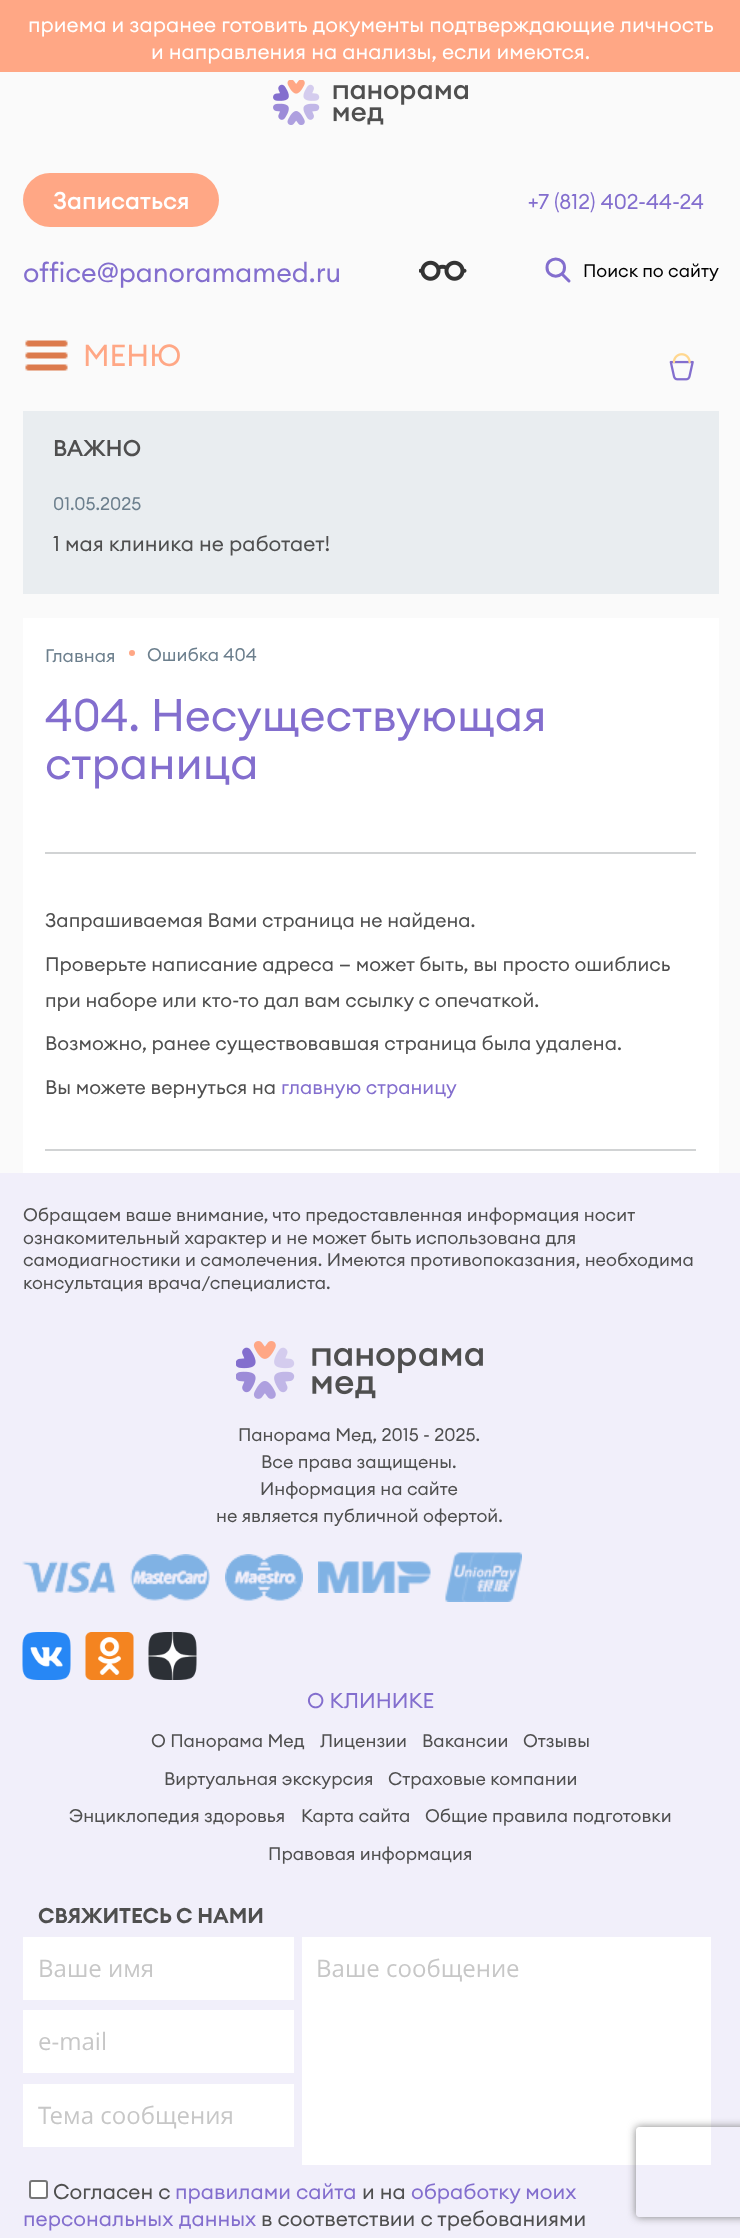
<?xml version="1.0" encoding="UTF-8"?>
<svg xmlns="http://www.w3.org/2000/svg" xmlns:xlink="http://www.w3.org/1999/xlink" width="740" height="2238">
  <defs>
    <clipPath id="clip1"><path d="M 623 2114 h 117 v 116 h -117 z m 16 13 h 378 c 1.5 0 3 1.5 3 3 v 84 c 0 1.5 -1.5 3 -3 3 h -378 c -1.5 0 -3 -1.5 -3 -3 v -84 c 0 -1.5 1.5 -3 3 -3 z" clip-rule="evenodd" /></clipPath>
  </defs>
  <rect width="100%" height="100%" fill="#fafafa" />
  <rect width="740" height="72" fill="#ffa785" />
  <image x="273" y="80" width="195" height="45" xlink:href="image1.png" />
  <rect x="23" y="173" width="196" height="54" rx="27" fill="#ffa785" />
  <image x="419" y="260" width="48" height="21" xlink:href="image2.png" />
  <path d="M 562 274 l 7 7 m -4.5 -13.5 c 0 11.5 -17.5 11.5 -17.5 0 c 0 -11.5 17.5 -11.5 17.5 0 z" fill="none" stroke="#836ece" stroke-width="3" stroke-linecap="round" stroke-linejoin="round" />
  <image x="25" y="340" width="43" height="31" xlink:href="image3.png" />
  <image x="669" y="353" width="25" height="28" xlink:href="image4.png" />
  <rect x="23" y="411" width="696" height="183" fill="#e9edf0" />
  <rect x="23" y="618" width="696" height="555" fill="#ffffff" />
  <circle cx="132" cy="653" r="3" fill="#ffa785" />
  <rect x="45" y="852" width="651" height="2" fill="#d1d3d4" />
  <rect x="45" y="1149" width="651" height="2" fill="#d1d3d4" />
  <rect y="1173" width="740" height="1065" fill="#f1effa" />
  <image x="236" y="1341" width="247" height="58" xlink:href="image5.png" />
  <image x="22" y="1561" width="94" height="32" xlink:href="image6.png" />
  <image x="130" y="1554" width="80" height="47" xlink:href="image7.png" />
  <image x="225" y="1554" width="78" height="47" xlink:href="image8.png" />
  <image x="318" y="1561" width="113" height="32" xlink:href="image9.png" />
  <image x="445" y="1552" width="77" height="50" xlink:href="image10.png" />
  <image x="22" y="1632" width="49" height="48" xlink:href="image11.png" />
  <image x="85" y="1632" width="49" height="48" xlink:href="image12.png" />
  <image x="148" y="1632" width="49" height="48" xlink:href="image13.png" />
  <rect x="23" y="1937" width="271" height="63" fill="#ffffff" />
  <rect x="23" y="2010" width="271" height="63" fill="#ffffff" />
  <rect x="23" y="2084" width="271" height="63" fill="#ffffff" />
  <rect x="302" y="1937" width="409" height="228" fill="#ffffff" />
  <rect x="30" y="2181" width="17" height="17" rx="2" fill="#ffffff" stroke="#767676" stroke-width="2" />
  <g clip-path="url(#clip1)">
    <rect x="636" y="2127" width="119" height="90" rx="3" fill="#808080" filter="blur(4px)" />
  </g>
  <text x="28" y="32" style="font-family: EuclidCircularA; font-size: 21px; fill: #ffffff">приема и заранее готовить документы подтверждающие личность</text>
  <text x="151" y="59" style="font-family: EuclidCircularA; font-size: 21px; fill: #ffffff">и направления на анализы, если имеются.</text>
  <text x="53" y="209" style="font-family: EuclidCircularA; font-size: 24px; font-weight: 500; fill: #ffffff">Записаться</text>
  <text x="528" y="209" style="font-family: EuclidCircularA; font-size: 21px; fill: #836ece">+7 (812) 402-44-24</text>
  <text x="23" y="282" style="font-family: EuclidCircularA; font-size: 27px; fill: #836ece">office@panoramamed.ru</text>
  <text x="583" y="277" style="font-family: EuclidCircularA; font-size: 18px; fill: #000000">Поиск по сайту</text>
  <text x="83" y="366" style="font-family: EuclidCircularA; font-size: 30px; fill: #ffa785">МЕНЮ</text>
  <text x="53" y="456" style="font-family: EuclidCircularA; font-size: 22.5px; font-weight: 500; fill: #4f4f4f">ВАЖНО</text>
  <text x="53" y="510" style="font-family: EuclidCircularA; font-size: 18px; fill: #6c7f8d">01.05.2025</text>
  <text x="53" y="551" style="font-family: EuclidCircularA; font-size: 21px; fill: #4f4f4f">1 мая клиника не работает!</text>
  <text x="45" y="662" style="font-family: EuclidCircularA; font-size: 18px; fill: #6c7f8d">Главная</text>
  <text x="147" y="661" style="font-family: EuclidCircularA; font-size: 18px; fill: #6c7f8d">Ошибка 404</text>
  <text x="45" y="731" style="font-family: EuclidCircularA; font-size: 45px; fill: #836ece">404. Несуществующая</text>
  <text x="45" y="779" style="font-family: EuclidCircularA; font-size: 45px; fill: #836ece">страница</text>
  <text x="45" y="927" style="font-family: EuclidCircularA; font-size: 19.5px; fill: #4f4f4f">Запрашиваемая Вами страница не найдена.</text>
  <text x="45" y="971" style="font-family: EuclidCircularA; font-size: 19.5px; fill: #4f4f4f">Проверьте написание адреса — может быть, вы просто ошиблись</text>
  <text x="45" y="1007" style="font-family: EuclidCircularA; font-size: 19.5px; fill: #4f4f4f">при наборе или кто-то дал вам ссылку с опечаткой.</text>
  <text x="45" y="1050" style="font-family: EuclidCircularA; font-size: 19.5px; fill: #4f4f4f">Возможно, ранее существовавшая страница была удалена.</text>
  <text x="45" y="1094" style="font-family: EuclidCircularA; font-size: 19.5px; fill: #4f4f4f">Вы можете вернуться на</text>
  <text x="281" y="1094" style="font-family: EuclidCircularA; font-size: 19.5px; fill: #836ece">главную страницу</text>
  <text x="23" y="1221" style="font-family: EuclidCircularA; font-size: 18px; fill: #4f4f4f">Обращаем ваше внимание, что предоставленная информация носит</text>
  <text x="23" y="1244" style="font-family: EuclidCircularA; font-size: 18px; fill: #4f4f4f">ознакомительный характер и не может быть использована для</text>
  <text x="23" y="1266" style="font-family: EuclidCircularA; font-size: 18px; fill: #4f4f4f">самодиагностики и самолечения. Имеются противопоказания, необходима</text>
  <text x="23" y="1289" style="font-family: EuclidCircularA; font-size: 18px; fill: #4f4f4f">консультация врача/специалиста.</text>
  <text x="238" y="1441" style="font-family: EuclidCircularA; font-size: 18px; fill: #4f4f4f">Панорама Мед, 2015 - 2025.</text>
  <text x="261" y="1468" style="font-family: EuclidCircularA; font-size: 18px; fill: #4f4f4f">Все права защищены.</text>
  <text x="260" y="1495" style="font-family: EuclidCircularA; font-size: 18px; fill: #4f4f4f">Информация на сайте</text>
  <text x="216" y="1522" style="font-family: EuclidCircularA; font-size: 18px; fill: #4f4f4f">не является публичной офертой.</text>
  <text x="307" y="1708" style="font-family: EuclidCircularA; font-size: 21px; fill: #836ece">О КЛИНИКЕ</text>
  <text x="151" y="1747" style="font-family: EuclidCircularA; font-size: 18px; fill: #4f4f4f">О Панорама Мед</text>
  <text x="320" y="1747" style="font-family: EuclidCircularA; font-size: 18px; fill: #4f4f4f">Лицензии</text>
  <text x="422" y="1747" style="font-family: EuclidCircularA; font-size: 18px; fill: #4f4f4f">Вакансии</text>
  <text x="523" y="1747" style="font-family: EuclidCircularA; font-size: 18px; fill: #4f4f4f">Отзывы</text>
  <text x="164" y="1785" style="font-family: EuclidCircularA; font-size: 18px; fill: #4f4f4f">Виртуальная экскурсия</text>
  <text x="388" y="1785" style="font-family: EuclidCircularA; font-size: 18px; fill: #4f4f4f">Страховые компании</text>
  <text x="69" y="1822" style="font-family: EuclidCircularA; font-size: 18px; fill: #4f4f4f">Энциклопедия здоровья</text>
  <text x="301" y="1822" style="font-family: EuclidCircularA; font-size: 18px; fill: #4f4f4f">Карта сайта</text>
  <text x="425" y="1822" style="font-family: EuclidCircularA; font-size: 18px; fill: #4f4f4f">Общие правила подготовки</text>
  <text x="268" y="1860" style="font-family: EuclidCircularA; font-size: 18px; fill: #4f4f4f">Правовая информация</text>
  <text x="38" y="1923" style="font-family: EuclidCircularA; font-size: 21px; font-weight: 600; fill: #4f4f4f">СВЯЖИТЕСЬ С НАМИ</text>
  <text x="38" y="1977" style="font-family: Open Sans; font-size: 24px; fill: #c7c7c7">Ваше имя</text>
  <text x="38" y="2050" style="font-family: Open Sans; font-size: 24px; fill: #c7c7c7">e-mail</text>
  <text x="38" y="2124" style="font-family: Open Sans; font-size: 24px; fill: #c7c7c7">Тема сообщения</text>
  <text x="316" y="1977" style="font-family: Open Sans; font-size: 24px; fill: #c7c7c7">Ваше сообщение</text>
  <text x="53" y="2199" style="font-family: EuclidCircularA; font-size: 21px; fill: #4f4f4f">Согласен c</text>
  <text x="175" y="2199" style="font-family: EuclidCircularA; font-size: 21px; fill: #836ece">правилами сайта</text>
  <text x="362" y="2199" style="font-family: EuclidCircularA; font-size: 21px; fill: #4f4f4f">и на</text>
  <text x="411" y="2199" style="font-family: EuclidCircularA; font-size: 21px; fill: #836ece">обработку моих</text>
  <text x="23" y="2226" style="font-family: EuclidCircularA; font-size: 21px; fill: #836ece">персональных данных</text>
  <text x="261" y="2226" style="font-family: EuclidCircularA; font-size: 21px; fill: #4f4f4f">в соответствии с требованиями</text>
</svg>
